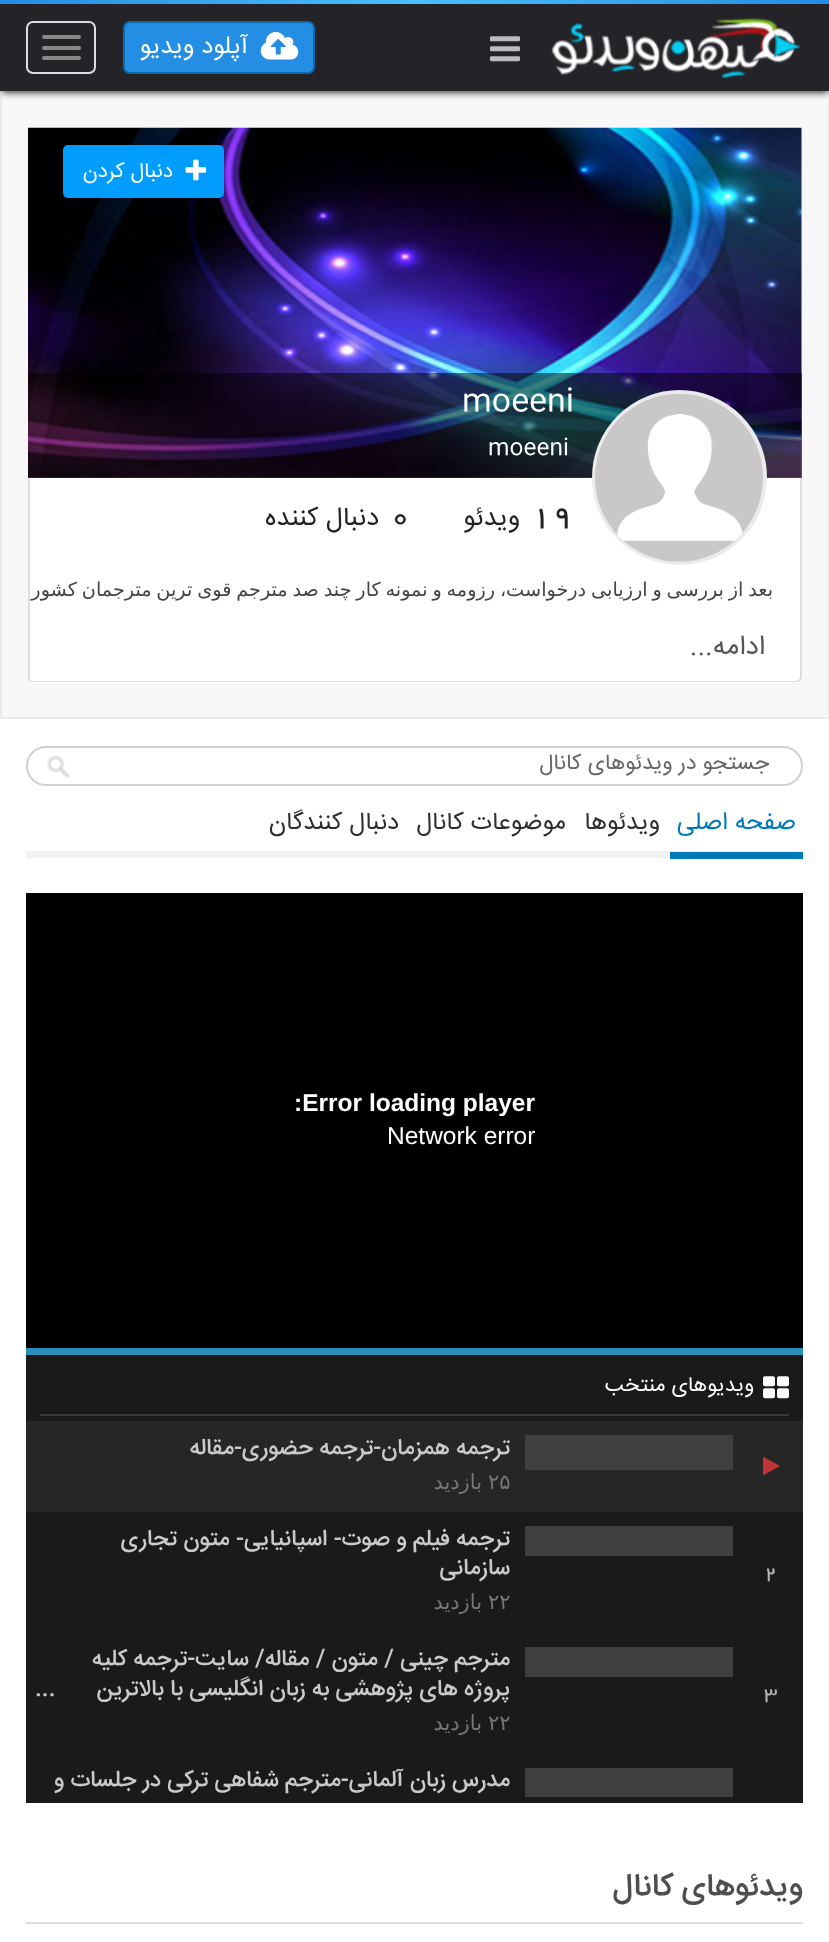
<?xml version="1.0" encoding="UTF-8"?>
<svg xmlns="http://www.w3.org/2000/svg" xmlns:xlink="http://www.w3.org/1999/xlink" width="829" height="1942">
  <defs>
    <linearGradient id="g1" gradientUnits="userSpaceOnUse" x1="0" y1="1.8" x2="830" y2="1.7"><stop offset="0" stop-color="#248de4" /><stop offset="0.5" stop-color="#4cbff9" /><stop offset="1" stop-color="#248de4" /></linearGradient>
    <clipPath id="clip1"><path d="M 30 478 h 770 v 199 c 0 2 -2 4 -4 4 h -762 c -2 0 -4 -2 -4 -4 z" /></clipPath>
  </defs>
  <rect width="100%" height="100%" fill="#ffffff" />
  <rect x="1" y="92" width="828" height="626" fill="#f7f7f7" stroke="#ebebeb" stroke-width="2" />
  <rect x="2" y="5" width="826" height="88" fill="#474747" filter="blur(3.5px)" />
  <rect y="4" width="829" height="87" fill="#232328" />
  <rect width="829" height="4" fill="url(#g1)" />
  <image x="551" y="18" width="250" height="61" xlink:href="image1.png" />
  <image x="490" y="36" width="30" height="26" xlink:href="image2.png" />
  <rect x="124" y="22" width="190" height="51" rx="6" fill="#248de4" stroke="#0e69b3" stroke-width="2" />
  <image x="260" y="32" width="39" height="28" xlink:href="image3.png" />
  <rect x="27" y="22" width="68" height="51" rx="6" fill="none" stroke="#dddddd" stroke-width="2" />
  <rect x="42" y="35" width="39" height="4" rx="2" fill="#888888" />
  <rect x="42" y="46" width="39" height="4" rx="2" fill="#888888" />
  <rect x="42" y="56" width="39" height="4" rx="2" fill="#888888" />
  <image x="28" y="128" width="774" height="350" xlink:href="image4.png" />
  <image x="28" y="127" width="774" height="351" xlink:href="image5.png" />
  <rect x="64" y="146" width="159" height="51" rx="4" fill="#009dff" stroke="#009dff" stroke-width="2" />
  <image x="185" y="159" width="22" height="22" xlink:href="image6.png" />
  <rect x="28" y="373" width="774" height="105" fill="#000000" fill-opacity="0.5" />
  <path d="M 28 478 h 774 v 200 c 0 3 -2 5 -5 5 h -764 c -3 0 -5 -2 -5 -5 z" fill="#ffffff" />
  <path d="M 28 478 h 774 v 199 c 0 3 -3 5 -6 5 h -763 c -3 0 -5 -2 -5 -5 z m 2 0 h 770 v 199 c 0 2 -2 4 -4 4 h -763 c -2 0 -3 -2 -3 -4 z" fill="#dddddd" fill-rule="evenodd" />
  <circle cx="679.5" cy="477.5" r="85.5" fill="#f7f7f7" stroke="#ebebeb" stroke-width="4" />
  <image x="595" y="394" width="168" height="168" xlink:href="image7.png" />
  <image x="47" y="755" width="24" height="24" xlink:href="image8.png" />
  <rect x="27" y="747" width="775" height="38" rx="19" fill="none" stroke="#d1d1d1" stroke-width="2" />
  <rect x="26" y="851" width="777" height="7" fill="#f2f2f2" />
  <rect x="670" y="852" width="133" height="7" fill="#0079b8" />
  <rect x="26" y="893" width="777" height="455" fill="#000000" />
  <rect x="26" y="1355" width="777" height="66" fill="#1a1a1a" />
  <rect x="26" y="1348" width="777" height="7" fill="#2a8fbd" />
  <image x="763" y="1376" width="26" height="23" xlink:href="image9.png" />
  <rect x="40" y="1414" width="749" height="2" fill="#3a3a3a" />
  <rect x="26" y="1512" width="777" height="291" fill="#1a1a1a" />
  <rect x="26" y="1421" width="777" height="91" fill="#262626" />
  <image x="763" y="1457" width="17" height="18" xlink:href="image10.png" />
  <rect x="525" y="1435" width="208" height="35" fill="#3f3f3f" />
  <rect x="525" y="1526" width="208" height="30" fill="#3f3f3f" />
  <rect x="525" y="1647" width="208" height="30" fill="#3f3f3f" />
  <rect x="525" y="1768" width="208" height="29" fill="#3f3f3f" />
  <rect x="26" y="1922" width="777" height="2" fill="#dddddd" />
  <text x="248" y="53" style="font-family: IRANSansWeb; font-size: 24.5px; direction: rtl; fill: #ffffff">آپلود ویدیو</text>
  <text x="173" y="177" style="font-family: IRANSansWeb; font-size: 21px; direction: rtl; fill: #ffffff">دنبال کردن</text>
  <text x="462" y="410" style="font-family: IRANSansWeb; font-size: 31.5px; fill: #ffffff">moeeni</text>
  <text x="488" y="454" style="font-family: IRANSansWeb; font-size: 22.75px; fill: #ffffff">moeeni</text>
  <text x="531" y="525" style="font-family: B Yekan; font-size: 35px; fill: #222222">19</text>
  <text x="520" y="525" style="font-family: IRANSansWeb; font-size: 26.25px; direction: rtl; fill: #222222">ویدئو</text>
  <text x="390" y="525" style="font-family: B Yekan; font-size: 35px; fill: #222222">0</text>
  <text x="379" y="525" style="font-family: IRANSansWeb; font-size: 26.25px; direction: rtl; fill: #222222">دنبال کننده</text>
  <g clip-path="url(#clip1)">
    <text x="773" y="596" word-spacing="-1.3" style="font-family: DejaVu Sans; font-size: 19.25px; direction: rtl; fill: #444444">بعد از بررسی و ارزیابی درخواست، رزومه و نمونه کار چند صد مترجم قوی ترین مترجمان کشور را در</text>
  </g>
  <text x="765" y="654" style="font-family: IRANSansWeb; font-size: 27px; direction: rtl; fill: #555555">ادامه...</text>
  <text x="769" y="769" style="font-family: IRANSansWeb; font-size: 21.9px; direction: rtl; fill: #666666">جستجو در ویدئوهای کانال</text>
  <text x="796" y="829" style="font-family: IRANSansWeb; font-size: 24.5px; direction: rtl; fill: #0079b8">صفحه اصلی</text>
  <text x="660" y="829" style="font-family: IRANSansWeb; font-size: 24.5px; direction: rtl; fill: #2e2e2e">ویدئوها</text>
  <text x="566" y="829" style="font-family: IRANSansWeb; font-size: 24.5px; direction: rtl; fill: #2e2e2e">موضوعات کانال</text>
  <text x="399" y="829" style="font-family: IRANSansWeb; font-size: 24.5px; direction: rtl; fill: #2e2e2e">دنبال کنندگان</text>
  <text x="294" y="1111" style="font-family: Liberation Sans; font-size: 24.5px; font-weight: bold; fill: #ffffff">:Error loading player</text>
  <text x="387" y="1144" style="font-family: Liberation Sans; font-size: 24.5px; fill: #ffffff">Network error</text>
  <text x="754" y="1391" style="font-family: IRANSansWeb; font-size: 21px; direction: rtl; fill: #ffffff">ویدیوهای منتخب</text>
  <text x="510" y="1454" style="font-family: IRANSansWeb; font-size: 22.75px; font-weight: 500; direction: rtl; fill: #cacaca">ترجمه همزمان-ترجمه حضوری-مقاله</text>
  <text x="488" y="1489" style="font-family: DejaVu Sans; font-size: 21px; fill: #767676">۲۵</text>
  <text x="482" y="1489" style="font-family: DejaVu Sans; font-size: 21px; direction: rtl; fill: #767676">بازدید</text>
  <text x="764" y="1579" style="font-family: B Yekan; font-size: 22.75px; fill: #b8b8b8">2</text>
  <text x="510" y="1545" style="font-family: IRANSansWeb; font-size: 22.75px; font-weight: 500; direction: rtl; fill: #cacaca">ترجمه فیلم و صوت- اسپانیایی- متون تجاری</text>
  <text x="510" y="1574" style="font-family: IRANSansWeb; font-size: 22.75px; font-weight: 500; direction: rtl; fill: #cacaca">سازمانی</text>
  <text x="488" y="1609" style="font-family: DejaVu Sans; font-size: 21px; fill: #767676">۲۲</text>
  <text x="482" y="1609" style="font-family: DejaVu Sans; font-size: 21px; direction: rtl; fill: #767676">بازدید</text>
  <text x="764" y="1700" style="font-family: B Yekan; font-size: 22.75px; fill: #b8b8b8">3</text>
  <text x="510" y="1665" style="font-family: IRANSansWeb; font-size: 22.75px; font-weight: 500; direction: rtl; fill: #cacaca">مترجم چینی / متون / مقاله/ سایت-ترجمه کلیه</text>
  <text x="510" y="1695" style="font-family: IRANSansWeb; font-size: 22.75px; font-weight: 500; direction: rtl; fill: #cacaca">پروژه های پژوهشی به زبان انگلیسی با بالاترین</text>
  <text x="35" y="1695" style="font-family: IRANSansWeb; font-size: 22.75px; font-weight: 500; fill: #cacaca">...</text>
  <text x="488" y="1730" style="font-family: DejaVu Sans; font-size: 21px; fill: #767676">۲۲</text>
  <text x="482" y="1730" style="font-family: DejaVu Sans; font-size: 21px; direction: rtl; fill: #767676">بازدید</text>
  <text x="510" y="1786" style="font-family: IRANSansWeb; font-size: 22.75px; font-weight: 500; direction: rtl; fill: #cacaca">مدرس زبان آلمانی-مترجم شفاهی ترکی در جلسات و</text>
  <text x="803" y="1895" style="font-family: IRANSansWeb; font-size: 31.5px; font-weight: 500; direction: rtl; fill: #4f4d4d">ویدئوهای کانال</text>
</svg>
